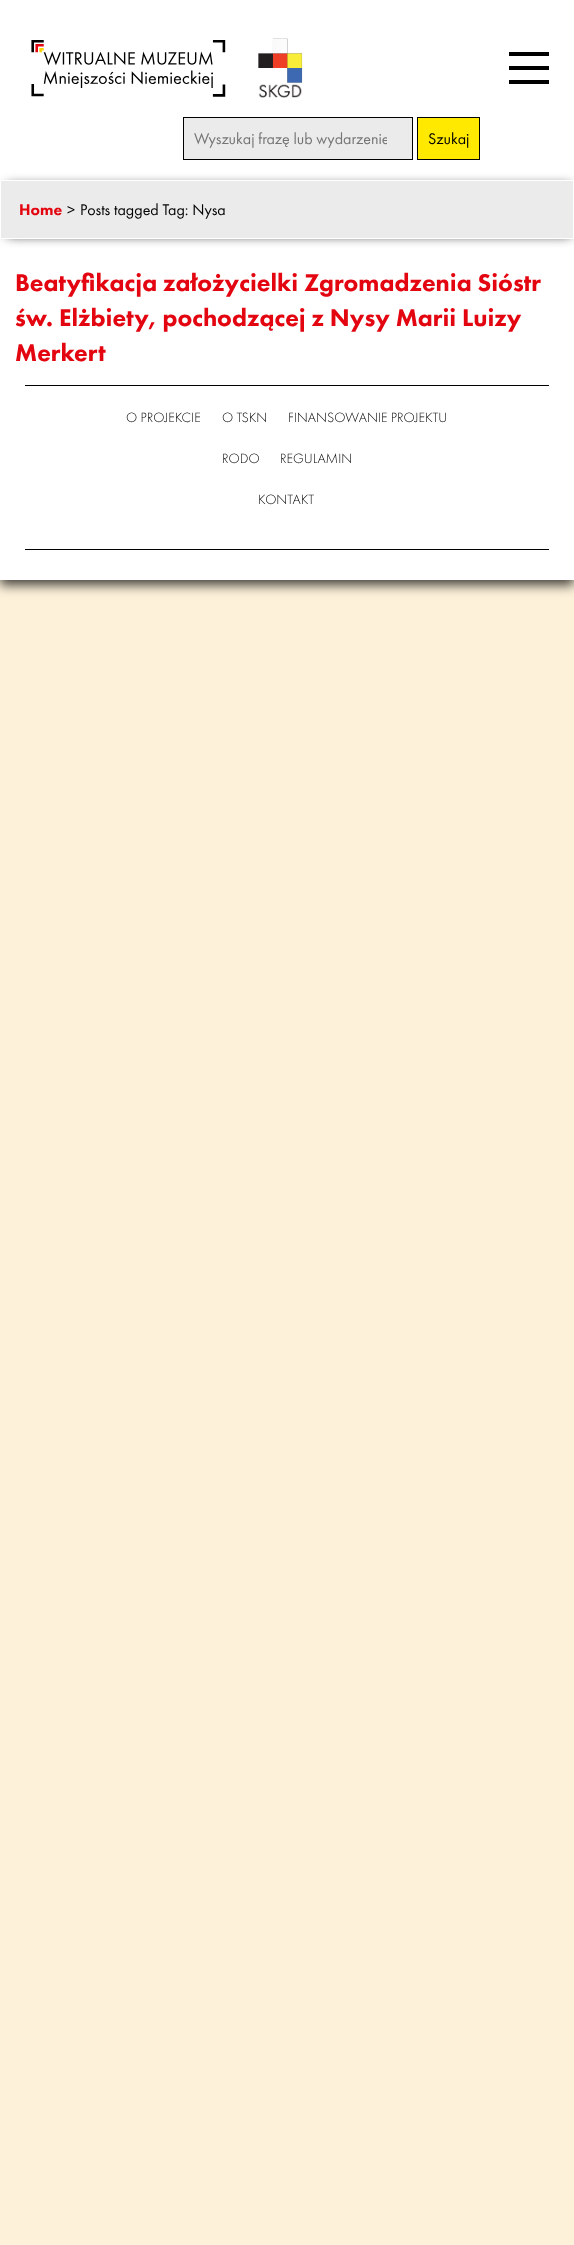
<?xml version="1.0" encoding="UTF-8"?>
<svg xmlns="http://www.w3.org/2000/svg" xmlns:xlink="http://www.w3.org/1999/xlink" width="574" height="2245">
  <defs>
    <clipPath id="clip1"><rect x="194" y="128" width="193" height="21" /></clipPath>
  </defs>
  <rect width="100%" height="100%" fill="#fdf1da" />
  <rect y="5" width="574" height="580" fill="#000000" fill-opacity="0.75" filter="blur(6px)" />
  <rect width="574" height="580" fill="#ffffff" />
  <image x="31" y="40" width="195" height="57" xlink:href="image1.png" />
  <image x="258" y="38" width="45" height="60" xlink:href="image2.png" />
  <rect x="509" y="52" width="40" height="4" fill="#000000" />
  <rect x="509" y="66" width="40" height="4" fill="#000000" />
  <rect x="509" y="80" width="40" height="4" fill="#000000" />
  <rect x="183.5" y="117.5" width="229" height="42" fill="#ecebeb" stroke="#000000" />
  <rect x="417.5" y="117.5" width="62" height="42" fill="#ffe900" stroke="#000000" />
  <rect x="7" y="186" width="564" height="49" fill="#000000" filter="blur(6px)" />
  <rect x="0.5" y="180.5" width="573" height="58" fill="#ecebeb" stroke="#ffffff" />
  <rect x="25" y="385" width="524" height="1" fill="#000000" />
  <rect x="25" y="549" width="524" height="1" fill="#000000" />
  <g clip-path="url(#clip1)">
    <text x="194" y="144" style="font-family: Futura PT; font-size: 16px; fill: #757575">Wyszukaj frazę lub wydarzenie</text>
  </g>
  <text x="428" y="144" style="font-family: Futura PT; font-size: 16px; fill: #000000">Szukaj</text>
  <text x="19" y="215" style="font-family: Futura PT; font-size: 16px; font-weight: 900; fill: #e3050f">Home</text>
  <text x="67" y="215" style="font-family: Futura PT; font-size: 16px; fill: #000000">&gt;</text>
  <text x="80" y="215" style="font-family: Futura PT; font-size: 16px; fill: #000000">Posts tagged Tag: Nysa</text>
  <text x="15" y="291" style="font-family: Futura PT; font-size: 25px; font-weight: 900; fill: #e3050f">Beatyfikacja założycielki Zgromadzenia Sióstr</text>
  <text x="15" y="326" style="font-family: Futura PT; font-size: 25px; font-weight: 900; fill: #e3050f">św. Elżbiety, pochodzącej z Nysy Marii Luizy</text>
  <text x="15" y="361" style="font-family: Futura PT; font-size: 25px; font-weight: 900; fill: #e3050f">Merkert</text>
  <text x="126" y="422" style="font-family: Futura PT; font-size: 14px; font-weight: 300; fill: #000000">O PROJEKCIE</text>
  <text x="222" y="422" style="font-family: Futura PT; font-size: 14px; font-weight: 300; fill: #000000">O TSKN</text>
  <text x="288" y="422" style="font-family: Futura PT; font-size: 14px; font-weight: 300; fill: #000000">FINANSOWANIE PROJEKTU</text>
  <text x="222" y="463" style="font-family: Futura PT; font-size: 14px; font-weight: 300; fill: #000000">RODO</text>
  <text x="280" y="463" style="font-family: Futura PT; font-size: 14px; font-weight: 300; fill: #000000">REGULAMIN</text>
  <text x="258" y="504" style="font-family: Futura PT; font-size: 14px; font-weight: 300; fill: #000000">KONTAKT</text>
</svg>
